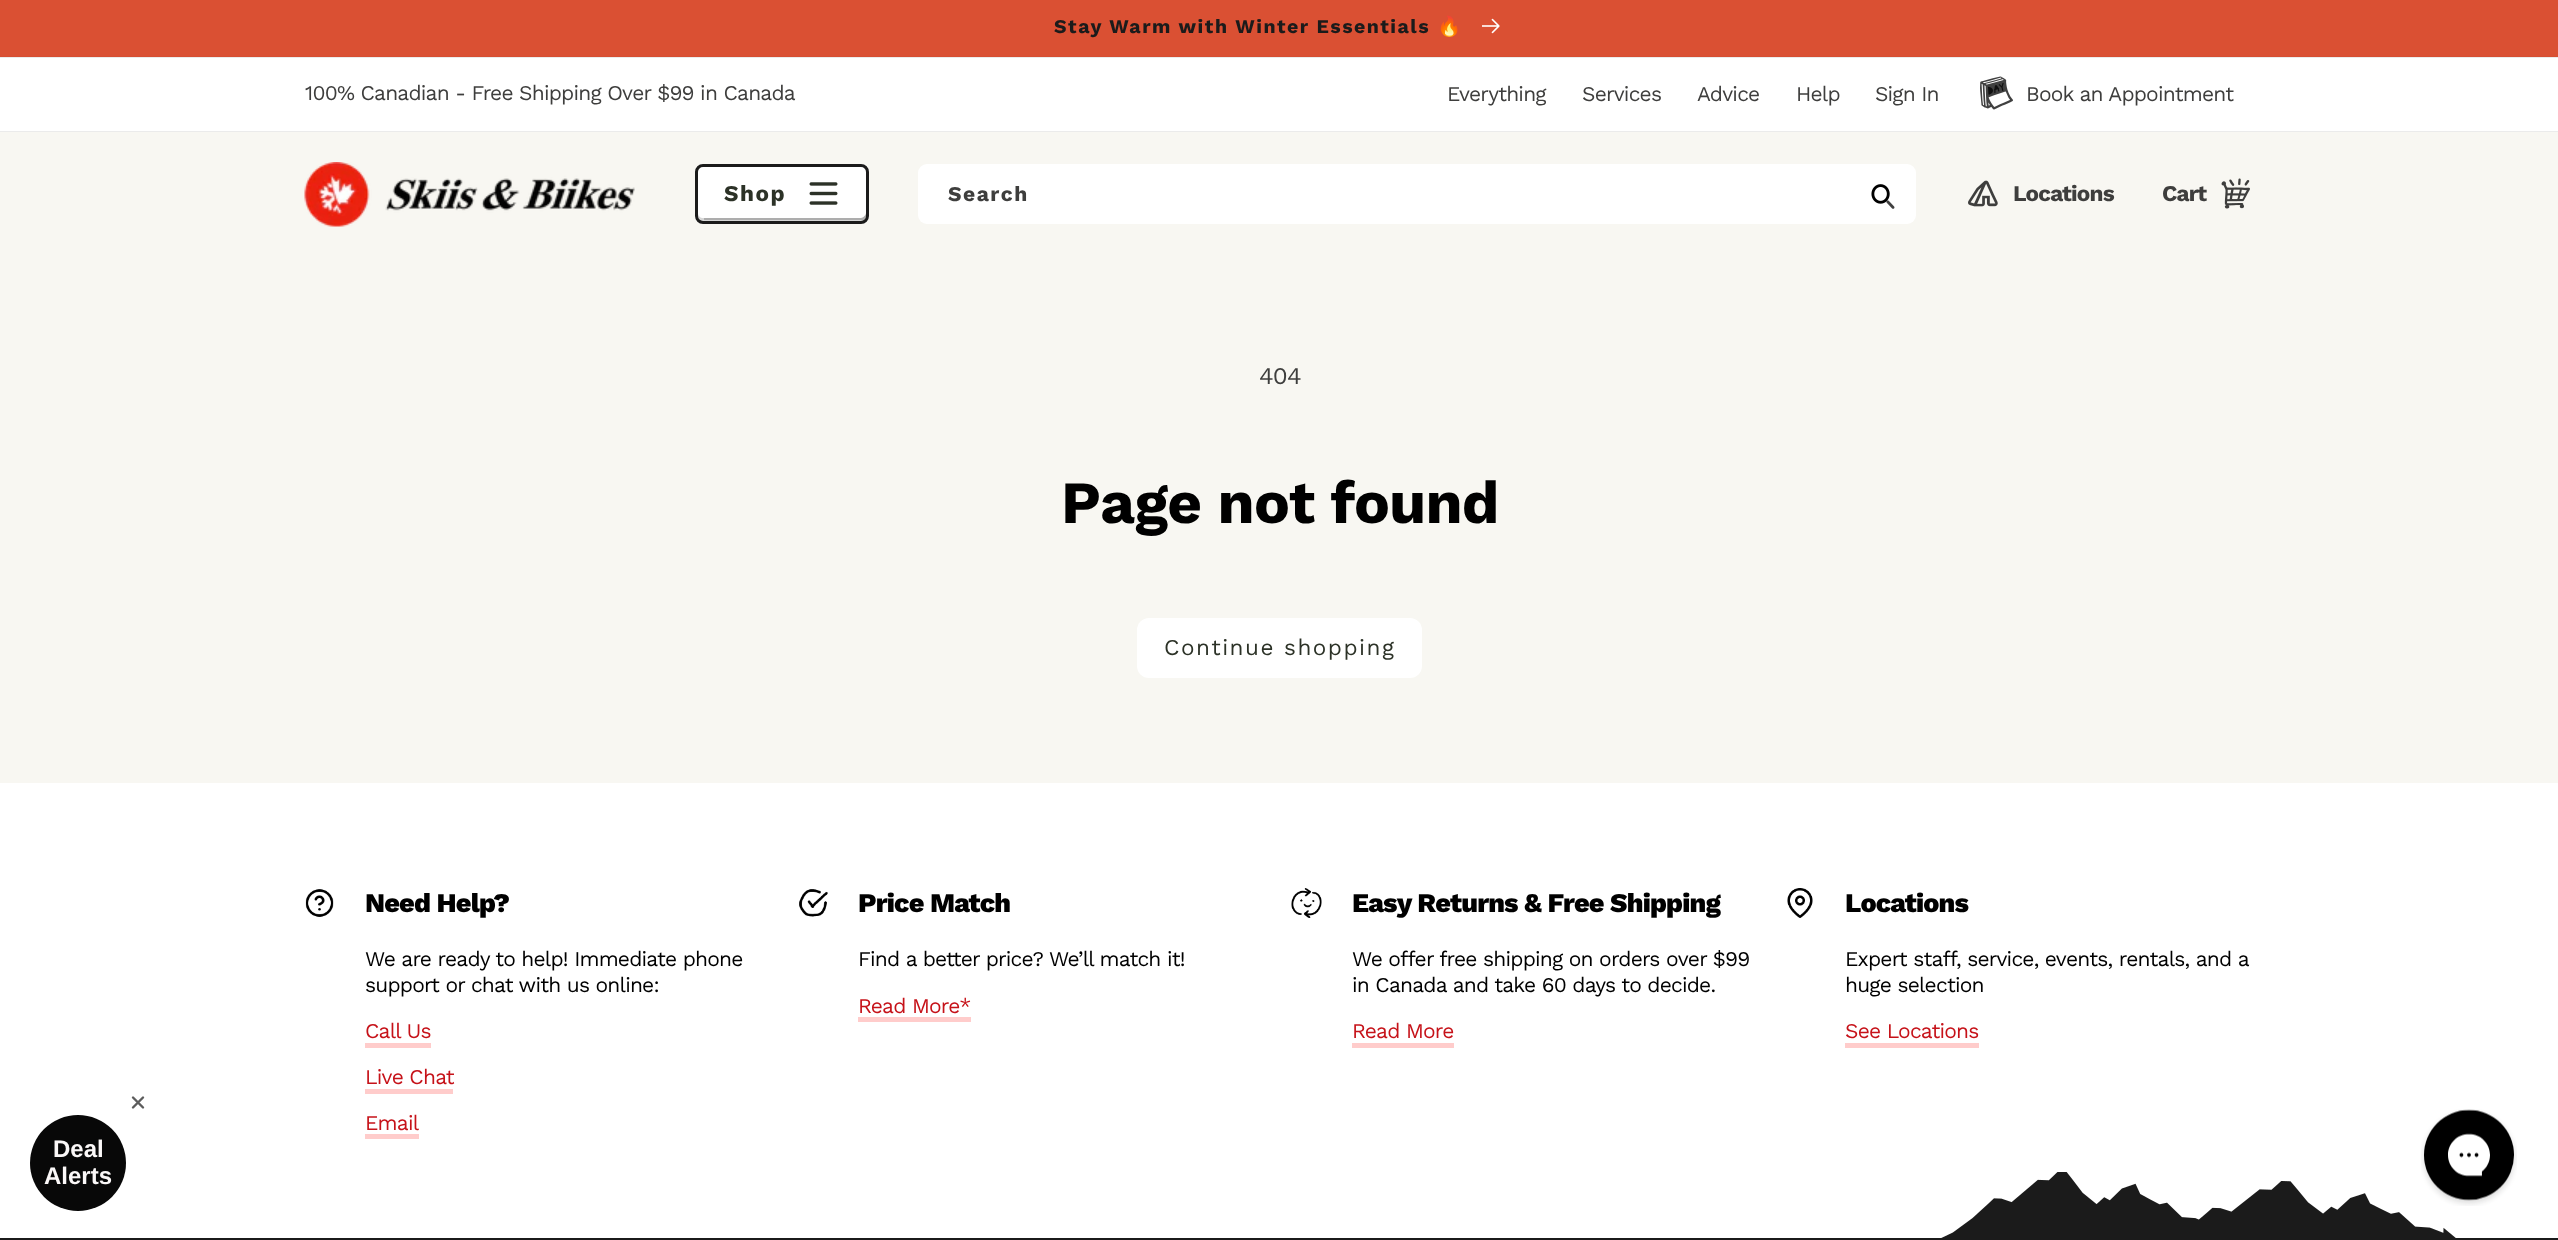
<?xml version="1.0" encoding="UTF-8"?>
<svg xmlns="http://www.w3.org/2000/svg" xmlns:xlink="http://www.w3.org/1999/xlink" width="2558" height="1240">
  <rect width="100%" height="100%" fill="#f8f7f2" />
  <rect y="56" width="2558" height="1" fill="#d54e32" />
  <rect width="2558" height="56" fill="#da5033" />
  <image x="1482" y="18" width="18" height="16" xlink:href="image1.png" />
  <rect y="58" width="2558" height="73" fill="#ffffff" />
  <rect y="57" width="2558" height="1" fill="#ebebeb" />
  <rect y="131" width="2558" height="1" fill="#ebebeb" />
  <image x="1980" y="76" width="33" height="34" xlink:href="image2.png" />
  <image x="304" y="162" width="331" height="65" xlink:href="image3.png" />
  <rect x="695" y="164" width="174" height="60" rx="8" fill="#ffffff" />
  <path d="M 698 213 v 3 c 0 3 2 5 5 5 h 158 c 3 0 5 -2 5 -5 v -3 c 0 2 -3 5 -5 5 h -159 c -2 0 -4 -3 -4 -5 z" fill="#999999" />
  <path d="M 705 172 h 159 c 1 0 2 1 2 2 v -2 c 0 -3 -2 -5 -5 -5 h -158 c -3 0 -5 2 -5 5 v 44 c 0 3 2 5 5 5 h 158 c 1 0 2 0 3 -1 h -159 c -1 0 -1 0 -1 -1 v -45 c 0 -1 0 -2 1 -2 z" fill="#ffffff" fill-opacity="0.5" />
  <path d="M 703 167 c -3 0 -5 2 -5 5 v 44 c 0 3 2 5 5 5 h 158 c 3 0 5 -2 5 -5 v -44 c 0 -3 -2 -5 -5 -5 z m -4 4 v 45 h 159 v -45 z" fill="#ffffff" fill-opacity="0.2" fill-rule="evenodd" />
  <rect x="696.5" y="165.5" width="171" height="57" rx="6.5" fill="none" stroke="#1b1b1b" stroke-width="3" />
  <image x="809" y="182" width="29" height="23" xlink:href="image4.png" />
  <rect x="918" y="164" width="998" height="60" rx="9" fill="#ffffff" />
  <image x="1871" y="184" width="24" height="25" xlink:href="image5.png" />
  <image x="1968" y="180" width="30" height="27" xlink:href="image6.png" />
  <image x="2221" y="178" width="29" height="31" xlink:href="image7.png" />
  <rect x="1137" y="618" width="285" height="60" rx="12" fill="#ffffff" />
  <rect y="783" width="2558" height="455" fill="#ffffff" />
  <image x="1941" y="1172" width="515" height="66" xlink:href="image8.png" />
  <image x="305" y="889" width="29" height="28" xlink:href="image9.png" />
  <rect x="365" y="1043" width="66" height="5" fill="#ffcccb" />
  <rect x="365" y="1089" width="88" height="5" fill="#ffcccb" />
  <rect x="365" y="1134" width="54" height="5" fill="#ffcccb" />
  <image x="799" y="889" width="29" height="28" xlink:href="image10.png" />
  <rect x="858" y="1017" width="113" height="5" fill="#ffcccb" />
  <image x="1291" y="888" width="31" height="30" xlink:href="image11.png" />
  <rect x="1352" y="1043" width="102" height="5" fill="#ffcccb" />
  <image x="1787" y="888" width="26" height="30" xlink:href="image12.png" />
  <rect x="1845" y="1043" width="134" height="5" fill="#ffcccb" />
  <path d="M 133 1097.5 l 10 10 m -10 0 l 10 -10 z" fill="none" stroke="#5c5c5c" stroke-width="2.4" stroke-linecap="round" stroke-linejoin="round" />
  <circle cx="78" cy="1163" r="48" fill="#080808" />
  <image x="2421" y="1109" width="96" height="97" xlink:href="image13.png" />
  <rect y="1238" width="2558" height="2" fill="#1b1b1b" />
  <text x="1054" y="33" style="font-family: Work Sans; font-size: 19.5px; font-weight: bold; letter-spacing: 1.5px; fill: #1b1b1b">Stay Warm with Winter Essentials</text>
  <text x="1437" y="33" style="font-family: Noto Color Emoji; font-size: 19.5px; font-weight: bold; letter-spacing: 1.5px; fill: #1b1b1b">🔥</text>
  <text x="305" y="100" style="font-family: Work Sans; font-size: 21px; letter-spacing: -0.8px; fill: #3e3e3d">100% Canadian - Free Shipping Over $99 in Canada</text>
  <text x="1447" y="101" style="font-family: Work Sans; font-size: 21px; letter-spacing: -0.8px; fill: #3e3e3d">Everything</text>
  <text x="1582" y="101" style="font-family: Work Sans; font-size: 21px; letter-spacing: -0.8px; fill: #3e3e3d">Services</text>
  <text x="1697" y="101" style="font-family: Work Sans; font-size: 21px; letter-spacing: -0.8px; fill: #3e3e3d">Advice</text>
  <text x="1796" y="101" style="font-family: Work Sans; font-size: 21px; letter-spacing: -0.8px; fill: #3e3e3d">Help</text>
  <text x="1875" y="101" style="font-family: Work Sans; font-size: 21px; letter-spacing: -0.8px; fill: #3e3e3d">Sign In</text>
  <text x="2026" y="101" style="font-family: Work Sans; font-size: 21px; letter-spacing: -0.8px; fill: #3e3e3d">Book an Appointment</text>
  <text x="724" y="201" style="font-family: Work Sans; font-size: 22.5px; font-weight: bold; letter-spacing: 1.5px; fill: #2c3227">Shop</text>
  <text x="948" y="201" style="font-family: Work Sans; font-size: 21px; font-weight: bold; letter-spacing: 1.5px; fill: #3e3e3d">Search</text>
  <text x="2013" y="201" style="font-family: Work Sans; font-size: 22.5px; font-weight: bold; letter-spacing: -0.8px; fill: #3e3e3d">Locations</text>
  <text x="2162" y="201" style="font-family: Work Sans; font-size: 22.5px; font-weight: bold; letter-spacing: -0.8px; fill: #3e3e3d">Cart</text>
  <text x="1259" y="384" style="font-family: Work Sans; font-size: 24px; letter-spacing: -0.8px; fill: #3e3e3d">404</text>
  <text x="1061" y="523" style="font-family: Work Sans; font-size: 60px; font-weight: bold; letter-spacing: -0.8px; fill: #000000">Page not found</text>
  <text x="1164" y="655" style="font-family: Work Sans; font-size: 22.5px; letter-spacing: 1.5px; fill: #2c3227">Continue shopping</text>
  <text x="365" y="912" style="font-family: Work Sans; font-size: 27px; font-weight: 800; letter-spacing: -0.8px; fill: #000000">Need Help?</text>
  <text x="365" y="966" style="font-family: Work Sans; font-size: 21px; letter-spacing: -0.8px; fill: #000000">We are ready to help! Immediate phone</text>
  <text x="365" y="992" style="font-family: Work Sans; font-size: 21px; letter-spacing: -0.8px; fill: #000000">support or chat with us online:</text>
  <text x="365" y="1038" style="font-family: Work Sans; font-size: 21px; letter-spacing: -0.8px; fill: #c61219">Call Us</text>
  <text x="365" y="1084" style="font-family: Work Sans; font-size: 21px; letter-spacing: -0.8px; fill: #c61219">Live Chat</text>
  <text x="365" y="1130" style="font-family: Work Sans; font-size: 21px; letter-spacing: -0.8px; fill: #c61219">Email</text>
  <text x="858" y="912" style="font-family: Work Sans; font-size: 27px; font-weight: 800; letter-spacing: -0.8px; fill: #000000">Price Match</text>
  <text x="858" y="966" style="font-family: Work Sans; font-size: 21px; letter-spacing: -0.8px; fill: #000000">Find a better price? We’ll match it!</text>
  <text x="858" y="1013" style="font-family: Work Sans; font-size: 21px; letter-spacing: -0.8px; fill: #c61219">Read More*</text>
  <text x="1352" y="912" style="font-family: Work Sans; font-size: 27px; font-weight: 800; letter-spacing: -0.8px; fill: #000000">Easy Returns &amp; Free Shipping</text>
  <text x="1352" y="966" style="font-family: Work Sans; font-size: 21px; letter-spacing: -0.8px; fill: #000000">We offer free shipping on orders over $99</text>
  <text x="1352" y="992" style="font-family: Work Sans; font-size: 21px; letter-spacing: -0.8px; fill: #000000">in Canada and take 60 days to decide.</text>
  <text x="1352" y="1038" style="font-family: Work Sans; font-size: 21px; letter-spacing: -0.8px; fill: #c61219">Read More</text>
  <text x="1845" y="912" style="font-family: Work Sans; font-size: 27px; font-weight: 800; letter-spacing: -0.8px; fill: #000000">Locations</text>
  <text x="1845" y="966" style="font-family: Work Sans; font-size: 21px; letter-spacing: -0.8px; fill: #000000">Expert staff, service, events, rentals, and a</text>
  <text x="1845" y="992" style="font-family: Work Sans; font-size: 21px; letter-spacing: -0.8px; fill: #000000">huge selection</text>
  <text x="1845" y="1038" style="font-family: Work Sans; font-size: 21px; letter-spacing: -0.8px; fill: #c61219">See Locations</text>
  <text x="53" y="1157" style="font-family: Liberation Sans; font-size: 24px; font-weight: bold; fill: #fbf8f8">Deal</text>
  <text x="44" y="1184" style="font-family: Liberation Sans; font-size: 24px; font-weight: bold; fill: #fbf8f8">Alerts</text>
</svg>
